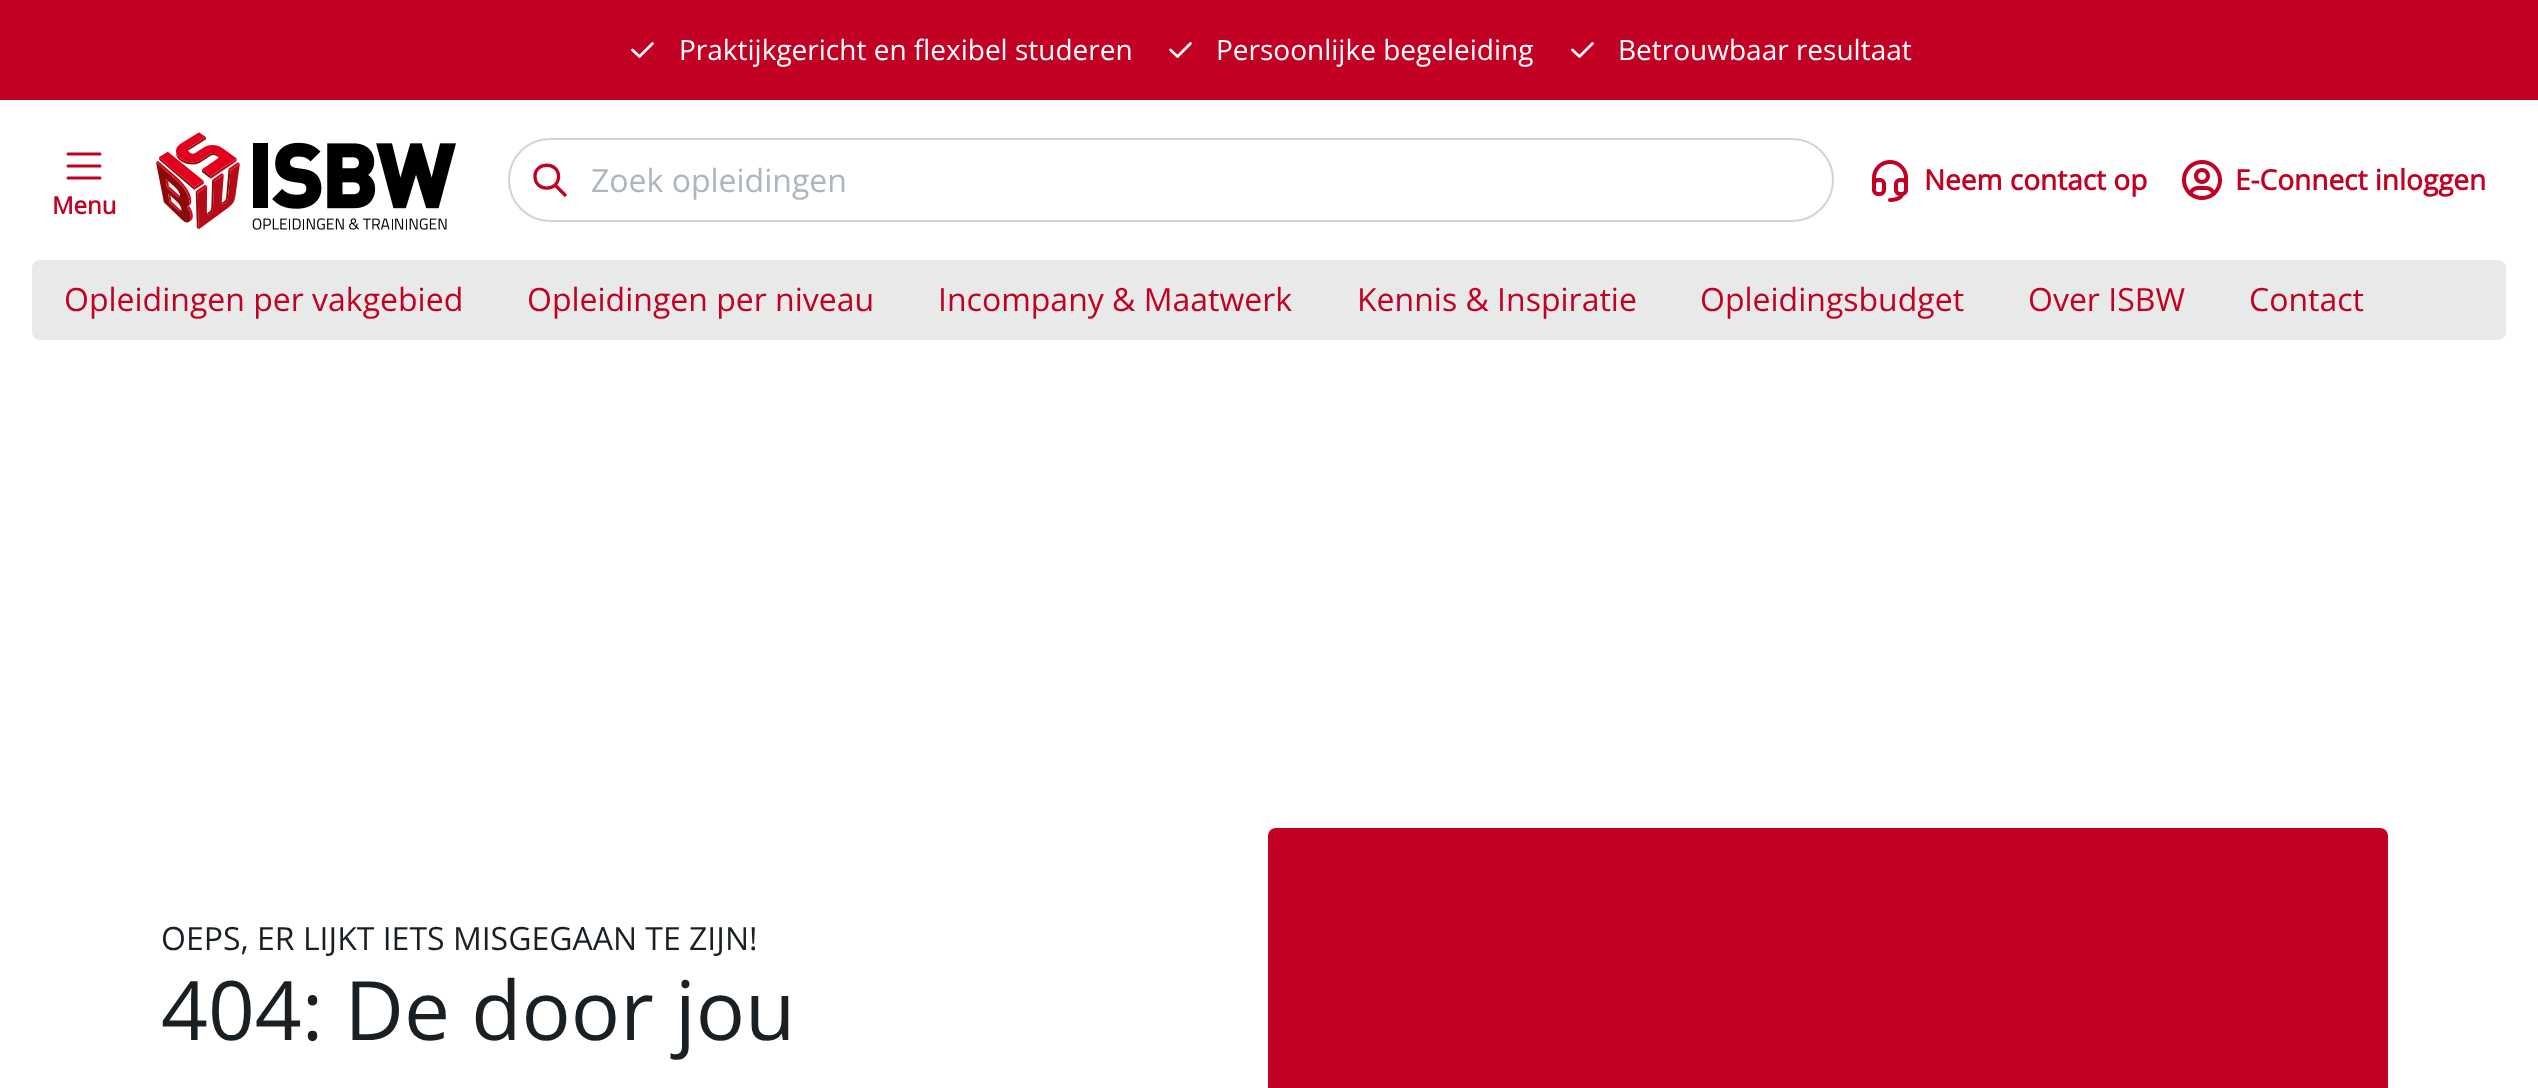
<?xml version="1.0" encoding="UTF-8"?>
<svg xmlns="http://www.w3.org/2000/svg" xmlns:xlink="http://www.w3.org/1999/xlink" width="2538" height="1088">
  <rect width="100%" height="100%" fill="#ffffff" />
  <rect width="2538" height="100" fill="#c20023" />
  <path d="M 632.5 50 l 7 6.5 l 13 -13" fill="none" stroke="#ffffff" stroke-width="2.7" stroke-linecap="round" stroke-linejoin="round" />
  <path d="M 1170.5 50 l 7 6.5 l 13 -13" fill="none" stroke="#ffffff" stroke-width="2.7" stroke-linecap="round" stroke-linejoin="round" />
  <path d="M 1572.5 50 l 7 6.5 l 13 -13" fill="none" stroke="#ffffff" stroke-width="2.7" stroke-linecap="round" stroke-linejoin="round" />
  <image x="156" y="132" width="300" height="98" xlink:href="image1.png" />
  <rect x="509" y="139" width="1324" height="82" rx="41" fill="none" stroke="#ced4da" stroke-width="2" />
  <path d="M 535 176.5 c 0 15.5 23.5 15.5 23.5 0 c 0 -15 -23.5 -15 -23.5 0 m 30 18.5 l -10 -10" fill="none" stroke="#c20023" stroke-width="3.3" stroke-linecap="round" stroke-linejoin="round" />
  <image x="1872" y="160" width="36" height="42" xlink:href="image2.png" />
  <image x="2182" y="160" width="40" height="40" xlink:href="image3.png" />
  <path d="M 68 154 h 32 m -32 12 h 32 m -32 12 h 32" fill="none" stroke="#c20023" stroke-width="3" stroke-linecap="round" stroke-linejoin="round" />
  <rect x="32" y="260" width="2474" height="80" rx="8" fill="#e8e9e9" />
  <rect x="1268" y="828" width="1120" height="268" rx="8" fill="#c20023" />
  <text x="679" y="60" style="font-family: Open Sans; font-size: 28px; fill: #ffffff">Praktijkgericht en flexibel studeren</text>
  <text x="1216" y="60" style="font-family: Open Sans; font-size: 28px; fill: #ffffff">Persoonlijke begeleiding</text>
  <text x="1618" y="60" style="font-family: Open Sans; font-size: 28px; fill: #ffffff">Betrouwbaar resultaat</text>
  <text x="591" y="192" style="font-family: Open Sans; font-size: 32px; fill: #adb5bd">Zoek opleidingen</text>
  <text x="1924" y="190" style="font-family: Open Sans; font-size: 28px; font-weight: bold; fill: #c20023">Neem contact op</text>
  <text x="2235" y="190" style="font-family: Open Sans; font-size: 28px; font-weight: bold; fill: #c20023">E-Connect inloggen</text>
  <text x="52" y="214" style="font-family: Open Sans; font-size: 24px; font-weight: bold; fill: #c20023">Menu</text>
  <text x="64" y="311" style="font-family: Open Sans; font-size: 32px; fill: #c20023">Opleidingen per vakgebied</text>
  <text x="527" y="311" style="font-family: Open Sans; font-size: 32px; fill: #c20023">Opleidingen per niveau</text>
  <text x="938" y="311" style="font-family: Open Sans; font-size: 32px; fill: #c20023">Incompany &amp; Maatwerk</text>
  <text x="1357" y="311" style="font-family: Open Sans; font-size: 32px; fill: #c20023">Kennis &amp; Inspiratie</text>
  <text x="1700" y="311" style="font-family: Open Sans; font-size: 32px; fill: #c20023">Opleidingsbudget</text>
  <text x="2028" y="311" style="font-family: Open Sans; font-size: 32px; fill: #c20023">Over ISBW</text>
  <text x="2249" y="311" style="font-family: Open Sans; font-size: 32px; fill: #c20023">Contact</text>
  <text x="161" y="950" style="font-family: Open Sans; font-size: 32px; fill: #1a1f23">OEPS, ER LIJKT IETS MISGEGAAN TE ZIJN!</text>
  <text x="161" y="1040" style="font-family: Open Sans; font-size: 82px; fill: #1a1f23">404: De door jou</text>
</svg>
